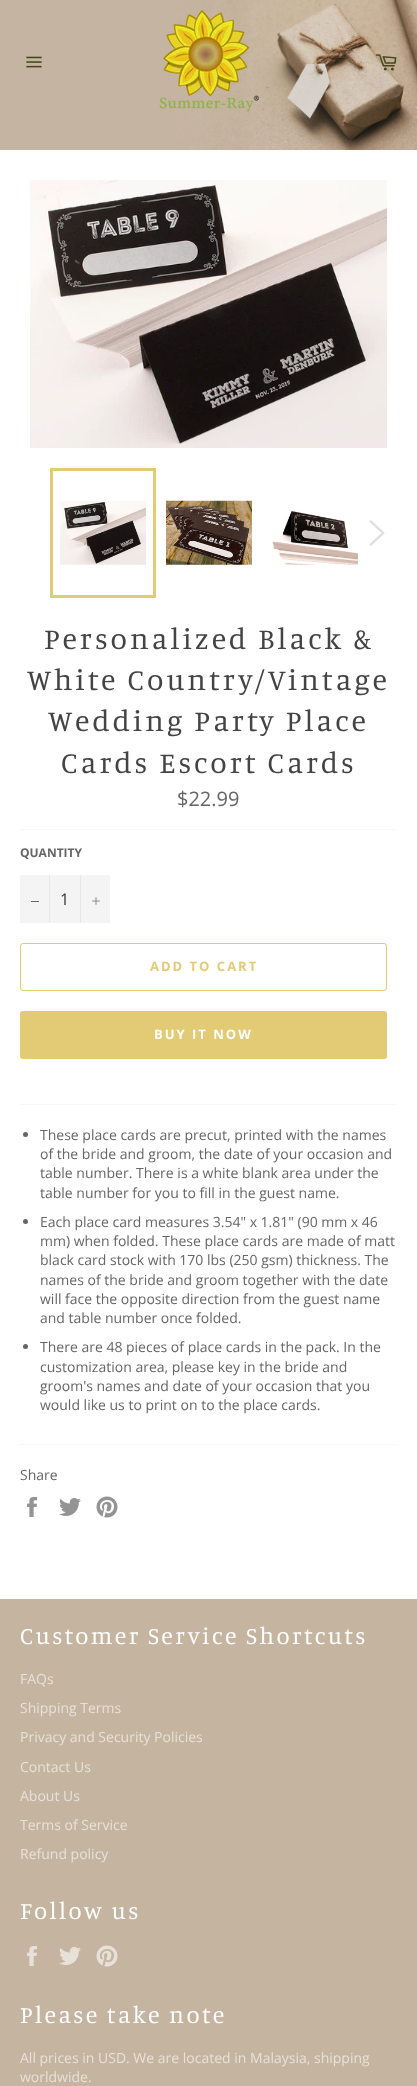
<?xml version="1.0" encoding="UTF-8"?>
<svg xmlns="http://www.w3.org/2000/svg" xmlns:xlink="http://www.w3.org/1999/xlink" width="417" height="2086">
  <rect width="100%" height="100%" fill="#ffffff" />
  <image x="0" y="0" width="417" height="150" xlink:href="image1.png" />
  <image x="26" y="56" width="16" height="12" xlink:href="image2.png" />
  <image x="159" y="10" width="100" height="102" xlink:href="image3.png" />
  <image x="375" y="54" width="22" height="17" xlink:href="image4.png" />
  <image x="30" y="180" width="357" height="268" xlink:href="image5.png" />
  <image x="60" y="500" width="86" height="65" xlink:href="image6.png" />
  <rect x="51.5" y="469.5" width="103" height="127" fill="none" stroke="#e3ca74" stroke-width="3" />
  <image x="166" y="500" width="86" height="65" xlink:href="image7.png" />
  <image x="272" y="511" width="86" height="54" xlink:href="image8.png" />
  <path d="M 369 521.5 l 2 -1.5 l 14 13 l -14 13 l -2 -1.5 l 12.5 -11.5 z" fill="#e0e0e0" />
  <rect x="20" y="829" width="377" height="1" fill="#f7f7f7" />
  <rect x="20" y="875" width="90" height="48" fill="#f4f4f4" />
  <rect x="49" y="875" width="1" height="48" fill="#e7e7e7" />
  <rect x="31" y="901" width="8" height="1" fill="#666666" />
  <rect x="80" y="875" width="1" height="48" fill="#e7e7e7" />
  <image x="92" y="897" width="8" height="8" xlink:href="image9.png" />
  <rect x="20.5" y="943.5" width="366" height="47" rx="2.5" fill="none" stroke="#e3ca74" />
  <rect x="20" y="1011" width="367" height="48" rx="3" fill="#e3ca74" />
  <rect x="20" y="1104" width="377" height="1" fill="#f7f7f7" />
  <circle cx="25.5" cy="1134.5" r="2.5" fill="#666666" />
  <circle cx="25.5" cy="1221.5" r="2.5" fill="#666666" />
  <circle cx="25.5" cy="1346.5" r="2.5" fill="#666666" />
  <rect x="20" y="1444" width="377" height="1" fill="#f7f7f7" />
  <image x="27" y="1497" width="10" height="20" xlink:href="image10.png" />
  <image x="59" y="1498" width="22" height="18" xlink:href="image11.png" />
  <image x="96" y="1496" width="22" height="22" xlink:href="image12.png" />
  <rect y="1599" width="417" height="487" fill="#c5b4a0" />
  <image x="27" y="1946" width="10" height="20" xlink:href="image13.png" />
  <image x="59" y="1947" width="22" height="18" xlink:href="image14.png" />
  <image x="96" y="1945" width="22" height="22" xlink:href="image15.png" />
  <text x="44" y="649" style="font-family: Manuale; font-size: 30px; letter-spacing: 3px; fill: #444444">Personalized Black &amp;</text>
  <text x="27" y="690" style="font-family: Manuale; font-size: 30px; letter-spacing: 3px; fill: #444444">White Country/Vintage</text>
  <text x="48" y="731" style="font-family: Manuale; font-size: 30px; letter-spacing: 3px; fill: #444444">Wedding Party Place</text>
  <text x="61" y="773" style="font-family: Manuale; font-size: 30px; letter-spacing: 3px; fill: #444444">Cards Escort Cards</text>
  <text x="177" y="806" style="font-family: Open Sans; font-size: 20px; fill: #666666">$22.99</text>
  <text x="20" y="857" style="font-family: Open Sans; font-size: 12px; font-weight: bold; fill: #666666">QUANTITY</text>
  <text x="60" y="905" style="font-family: Open Sans; font-size: 16px; fill: #333333">1</text>
  <text x="150" y="971" style="font-family: Open Sans; font-size: 13px; font-weight: bold; letter-spacing: 2px; fill: #e3ca74">ADD TO CART</text>
  <text x="154" y="1039" style="font-family: Open Sans; font-size: 13px; font-weight: bold; letter-spacing: 2px; fill: #ffffff">BUY IT NOW</text>
  <text x="40" y="1140" style="font-family: Open Sans; font-size: 14px; fill: #666666">These place cards are precut, printed with the names</text>
  <text x="40" y="1159" style="font-family: Open Sans; font-size: 14px; fill: #666666">of the bride and groom, the date of your occasion and</text>
  <text x="40" y="1178" style="font-family: Open Sans; font-size: 14px; fill: #666666">table number. There is a white blank area under the</text>
  <text x="40" y="1198" style="font-family: Open Sans; font-size: 14px; fill: #666666">table number for you to fill in the guest name.</text>
  <text x="40" y="1227" style="font-family: Open Sans; font-size: 14px; fill: #666666">Each place card measures 3.54" x 1.81" (90 mm x 46</text>
  <text x="40" y="1246" style="font-family: Open Sans; font-size: 14px; fill: #666666">mm) when folded. These place cards are made of matt</text>
  <text x="40" y="1265" style="font-family: Open Sans; font-size: 14px; fill: #666666">black card stock with 170 lbs (250 gsm) thickness. The</text>
  <text x="40" y="1285" style="font-family: Open Sans; font-size: 14px; fill: #666666">names of the bride and groom together with the date</text>
  <text x="40" y="1304" style="font-family: Open Sans; font-size: 14px; fill: #666666">will face the opposite direction from the guest name</text>
  <text x="40" y="1323" style="font-family: Open Sans; font-size: 14px; fill: #666666">and table number once folded.</text>
  <text x="40" y="1352" style="font-family: Open Sans; font-size: 14px; fill: #666666">There are 48 pieces of place cards in the pack. In the</text>
  <text x="40" y="1372" style="font-family: Open Sans; font-size: 14px; fill: #666666">customization area, please key in the bride and</text>
  <text x="40" y="1391" style="font-family: Open Sans; font-size: 14px; fill: #666666">groom's names and date of your occasion that you</text>
  <text x="40" y="1410" style="font-family: Open Sans; font-size: 14px; fill: #666666">would like us to print on to the place cards.</text>
  <text x="20" y="1480" style="font-family: Open Sans; font-size: 14px; fill: #666666">Share</text>
  <text x="20" y="1644" style="font-family: Manuale; font-size: 24px; letter-spacing: 2.4px; fill: #ffffff">Customer Service Shortcuts</text>
  <text x="20" y="1684" style="font-family: Open Sans; font-size: 14px; fill: #e8e1d9">FAQs</text>
  <text x="20" y="1713" style="font-family: Open Sans; font-size: 14px; fill: #e8e1d9">Shipping Terms</text>
  <text x="20" y="1742" style="font-family: Open Sans; font-size: 14px; fill: #e8e1d9">Privacy and Security Policies</text>
  <text x="20" y="1772" style="font-family: Open Sans; font-size: 14px; fill: #e8e1d9">Contact Us</text>
  <text x="20" y="1801" style="font-family: Open Sans; font-size: 14px; fill: #e8e1d9">About Us</text>
  <text x="20" y="1830" style="font-family: Open Sans; font-size: 14px; fill: #e8e1d9">Terms of Service</text>
  <text x="20" y="1859" style="font-family: Open Sans; font-size: 14px; fill: #e8e1d9">Refund policy</text>
  <text x="20" y="1919" style="font-family: Manuale; font-size: 24px; letter-spacing: 2.4px; fill: #ffffff">Follow us</text>
  <text x="20" y="2023" style="font-family: Manuale; font-size: 24px; letter-spacing: 2.4px; fill: #ffffff">Please take note</text>
  <text x="20" y="2063" style="font-family: Open Sans; font-size: 14px; fill: #e8e1d9">All prices in USD. We are located in Malaysia, shipping</text>
  <text x="20" y="2082" style="font-family: Open Sans; font-size: 14px; fill: #e8e1d9">worldwide.</text>
</svg>
